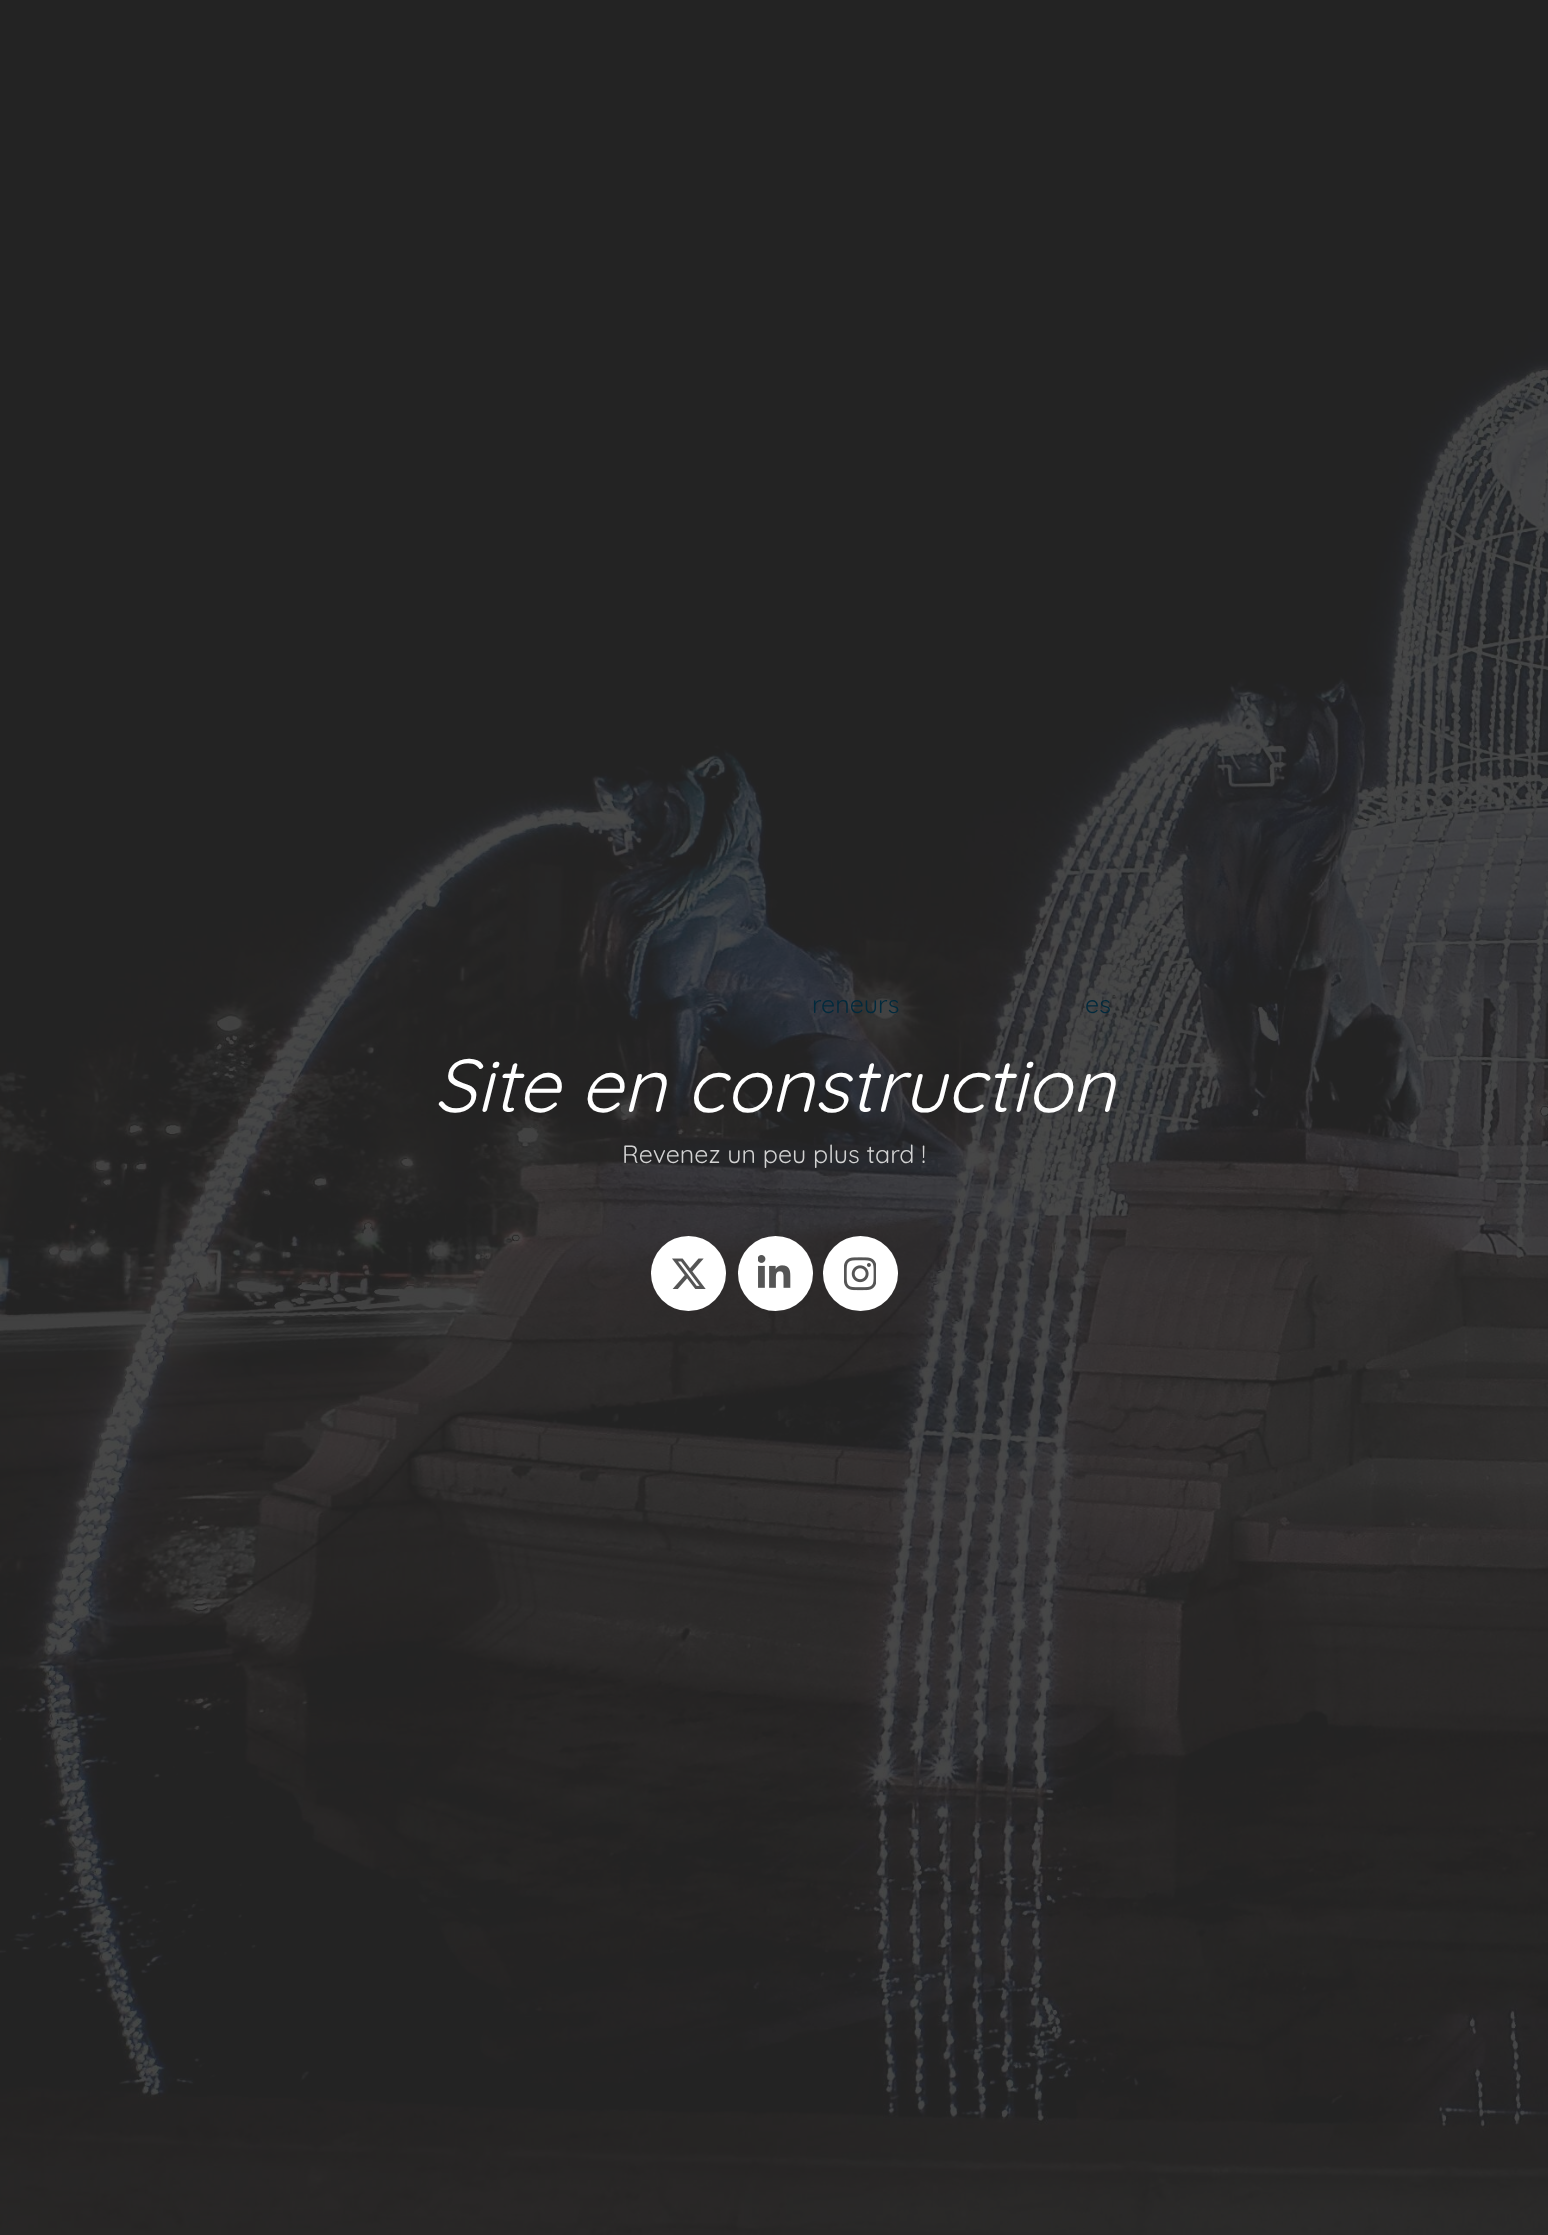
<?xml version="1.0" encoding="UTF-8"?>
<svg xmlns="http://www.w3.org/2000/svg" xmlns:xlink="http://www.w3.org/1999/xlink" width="1548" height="2235">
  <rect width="100%" height="100%" fill="#ffffff" />
  <image x="0" y="0" width="1548" height="2235" xlink:href="image1.png" />
  <circle cx="688.5" cy="1273.5" r="37.5" fill="#ffffff" />
  <image x="672" y="1258" width="34" height="31" xlink:href="image2.png" />
  <circle cx="775.5" cy="1273.5" r="37.5" fill="#ffffff" />
  <image x="758" y="1255" width="33" height="33" xlink:href="image3.png" />
  <circle cx="860.5" cy="1273.5" r="37.5" fill="#ffffff" />
  <image x="844" y="1257" width="32" height="34" xlink:href="image4.png" />
  <text x="812" y="1013" style="font-family: Quicksand; font-size: 25px; fill: #002a3d">reneurs</text>
  <text x="1085" y="1013" style="font-family: Quicksand; font-size: 25px; fill: #002a3d">es</text>
  <text x="434" y="1112" style="font-family: Quicksand; font-size: 75px; font-style: italic; fill: #ffffff">Site en construction</text>
  <text x="622" y="1163" style="font-family: Quicksand; font-size: 25px; fill: #d2d2d2">Revenez un peu plus tard !</text>
</svg>
